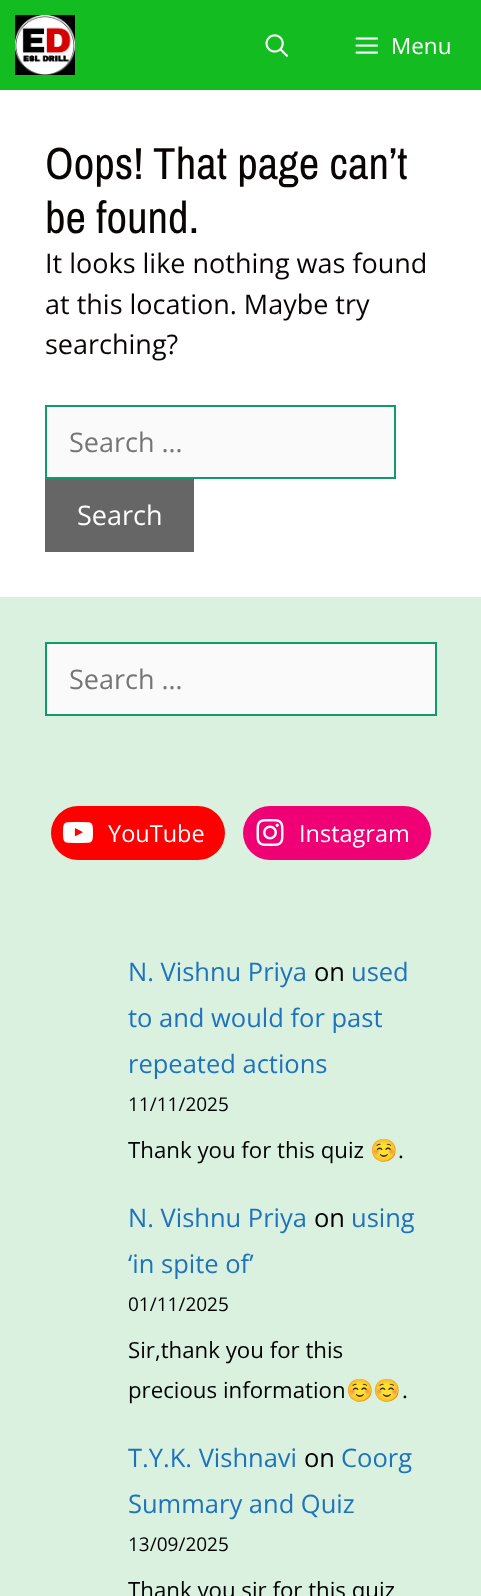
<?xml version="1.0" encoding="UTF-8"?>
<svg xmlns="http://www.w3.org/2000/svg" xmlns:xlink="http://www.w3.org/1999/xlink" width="481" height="1596">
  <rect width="100%" height="100%" fill="#13bc21" />
  <image x="15" y="15" width="60" height="60" xlink:href="image1.png" />
  <image x="265" y="34" width="23" height="23" xlink:href="image2.png" />
  <image x="355" y="37" width="23" height="17" xlink:href="image3.png" />
  <rect y="90" width="481" height="507" fill="#ffffff" />
  <rect x="46" y="406" width="349" height="72" fill="#fafafa" stroke="#119b6d" stroke-width="2" />
  <rect x="45" y="479" width="149" height="73" fill="#666666" />
  <rect y="597" width="481" height="308" fill="#d9f1de" />
  <rect x="46" y="643" width="390" height="72" fill="#fafafa" stroke="#119b6d" stroke-width="2" />
  <rect x="51" y="806" width="174" height="54" rx="27" fill="#ff0000" />
  <image x="63" y="821" width="30" height="23" xlink:href="image4.png" />
  <rect x="243" y="806" width="188" height="54" rx="27" fill="#f00075" />
  <image x="256" y="819" width="28" height="27" xlink:href="image5.png" />
  <rect y="905" width="481" height="691" fill="#daf1df" />
  <text x="391" y="54" style="font-family: Open Sans; font-size: 22.5px; fill: #ffffff">Menu</text>
  <text x="45" y="179" style="font-family: Archivo Narrow; font-size: 45px; fill: #0a0505">Oops! That page can’t</text>
  <text x="45" y="233" style="font-family: Archivo Narrow; font-size: 45px; fill: #0a0505">be found.</text>
  <text x="45" y="273" style="font-family: Open Sans; font-size: 27px; fill: #0a0505">It looks like nothing was found</text>
  <text x="45" y="314" style="font-family: Open Sans; font-size: 27px; fill: #0a0505">at this location. Maybe try</text>
  <text x="45" y="354" style="font-family: Open Sans; font-size: 27px; fill: #0a0505">searching?</text>
  <text x="69" y="452" style="font-family: Open Sans; font-size: 27px; fill: #757575">Search …</text>
  <text x="77" y="525" style="font-family: Open Sans; font-size: 27px; fill: #ffffff">Search</text>
  <text x="69" y="689" style="font-family: Open Sans; font-size: 27px; fill: #757575">Search …</text>
  <text x="108" y="842" style="font-family: Open Sans; font-size: 23.5px; fill: #ffffff">YouTube</text>
  <text x="299" y="842" style="font-family: Open Sans; font-size: 23.5px; fill: #ffffff">Instagram</text>
  <text x="128" y="981" style="font-family: Open Sans; font-size: 25.5px; fill: #1e73be">N. Vishnu Priya</text>
  <text x="314" y="981" style="font-family: Open Sans; font-size: 25.5px; fill: #000000">on</text>
  <text x="351" y="981" style="font-family: Open Sans; font-size: 25.5px; fill: #1e73be">used</text>
  <text x="128" y="1027" style="font-family: Open Sans; font-size: 25.5px; fill: #1e73be">to and would for past</text>
  <text x="128" y="1073" style="font-family: Open Sans; font-size: 25.5px; fill: #1e73be">repeated actions</text>
  <text x="128" y="1111" style="font-family: Open Sans; font-size: 19px; fill: #000000">11/11/2025</text>
  <text x="128" y="1158" style="font-family: Open Sans; font-size: 22.25px; fill: #000000">Thank you for this quiz</text>
  <text x="370" y="1158" style="font-family: Noto Color Emoji; font-size: 22.25px; fill: #000000">☺️</text>
  <text x="398" y="1158" style="font-family: Open Sans; font-size: 22.25px; fill: #000000">.</text>
  <text x="128" y="1227" style="font-family: Open Sans; font-size: 25.5px; fill: #1e73be">N. Vishnu Priya</text>
  <text x="314" y="1227" style="font-family: Open Sans; font-size: 25.5px; fill: #000000">on</text>
  <text x="351" y="1227" style="font-family: Open Sans; font-size: 25.5px; fill: #1e73be">using</text>
  <text x="128" y="1273" style="font-family: Open Sans; font-size: 25.5px; fill: #1e73be">‘in spite of’</text>
  <text x="128" y="1311" style="font-family: Open Sans; font-size: 19px; fill: #000000">01/11/2025</text>
  <text x="128" y="1358" style="font-family: Open Sans; font-size: 22.25px; fill: #000000">Sir,thank you for this</text>
  <text x="128" y="1398" style="font-family: Open Sans; font-size: 22.25px; fill: #000000">precious information</text>
  <text x="346" y="1398" style="font-family: Noto Color Emoji; font-size: 22.25px; fill: #000000">☺️☺️</text>
  <text x="402" y="1398" style="font-family: Open Sans; font-size: 22.25px; fill: #000000">.</text>
  <text x="128" y="1467" style="font-family: Open Sans; font-size: 25.5px; fill: #1e73be">T.Y.K. Vishnavi</text>
  <text x="304" y="1467" style="font-family: Open Sans; font-size: 25.5px; fill: #000000">on</text>
  <text x="341" y="1467" style="font-family: Open Sans; font-size: 25.5px; fill: #1e73be">Coorg</text>
  <text x="128" y="1513" style="font-family: Open Sans; font-size: 25.5px; fill: #1e73be">Summary and Quiz</text>
  <text x="128" y="1551" style="font-family: Open Sans; font-size: 19px; fill: #000000">13/09/2025</text>
  <text x="128" y="1598" style="font-family: Open Sans; font-size: 22.25px; fill: #000000">Thank you sir for this quiz</text>
</svg>
